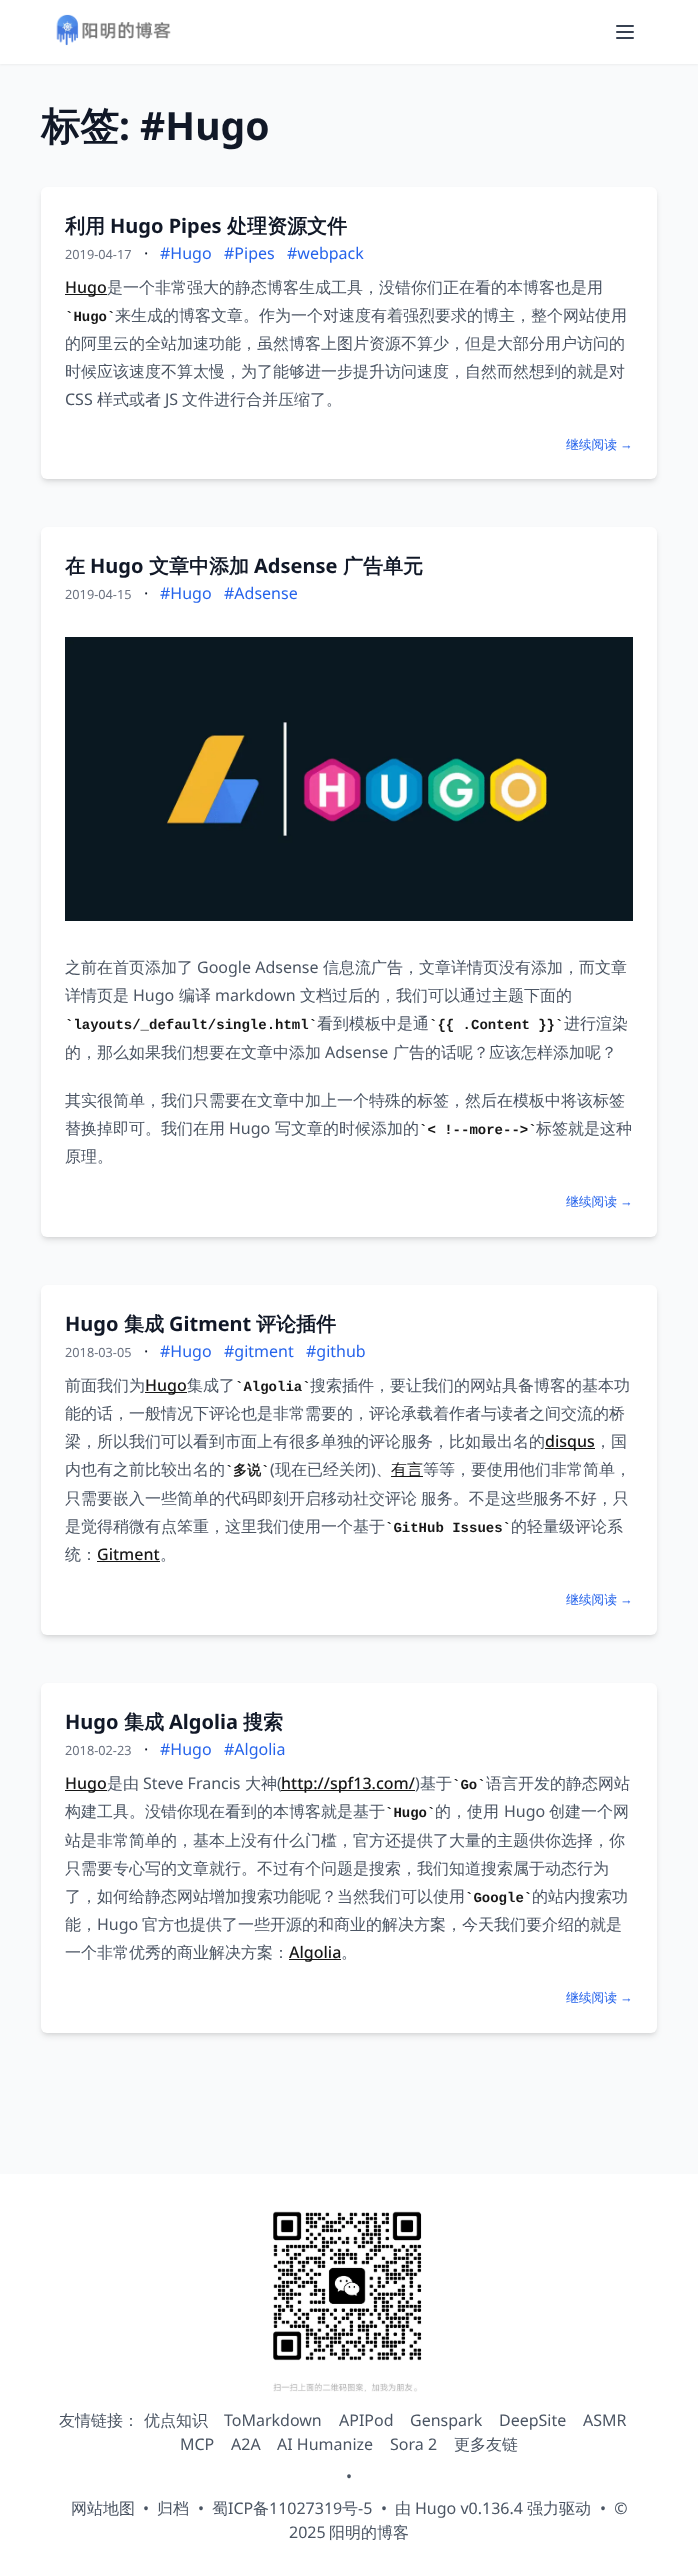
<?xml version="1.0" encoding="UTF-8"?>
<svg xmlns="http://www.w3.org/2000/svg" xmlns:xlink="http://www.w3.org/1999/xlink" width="698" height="2568">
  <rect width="100%" height="100%" fill="#f9fafb" />
  <rect y="1" width="698" height="64" fill="#000000" fill-opacity="0.05" filter="blur(1px)" />
  <rect width="698" height="64" fill="#ffffff" />
  <image x="56" y="14" width="115" height="32" xlink:href="image1.png" />
  <path d="M 617 26 h 16 m -16 6 h 16 m -16 6 h 16" fill="none" stroke="#374151" stroke-width="2" stroke-linecap="round" stroke-linejoin="round" />
  <rect x="43" y="191" width="612" height="288" rx="4" fill="#000000" fill-opacity="0.1" filter="blur(2px)" />
  <rect x="42" y="192" width="614" height="290" rx="5" fill="#000000" fill-opacity="0.1" filter="blur(3px)" />
  <rect x="41" y="187" width="616" height="292" rx="6" fill="#ffffff" />
  <rect x="65" y="294" width="42" height="1" fill="#171717" />
  <rect x="43" y="531" width="612" height="706" rx="4" fill="#000000" fill-opacity="0.1" filter="blur(2px)" />
  <rect x="42" y="532" width="614" height="708" rx="5" fill="#000000" fill-opacity="0.1" filter="blur(3px)" />
  <rect x="41" y="527" width="616" height="710" rx="6" fill="#ffffff" />
  <image x="65" y="637" width="568" height="284" xlink:href="image2.png" />
  <rect x="43" y="1289" width="612" height="346" rx="4" fill="#000000" fill-opacity="0.1" filter="blur(2px)" />
  <rect x="42" y="1290" width="614" height="348" rx="5" fill="#000000" fill-opacity="0.1" filter="blur(3px)" />
  <rect x="41" y="1285" width="616" height="350" rx="6" fill="#ffffff" />
  <rect x="145" y="1392" width="42" height="1" fill="#171717" />
  <rect x="545" y="1448" width="50" height="1" fill="#171717" />
  <rect x="391" y="1476" width="32" height="1" fill="#171717" />
  <rect x="97" y="1561" width="63" height="1" fill="#171717" />
  <rect x="43" y="1687" width="612" height="346" rx="4" fill="#000000" fill-opacity="0.1" filter="blur(2px)" />
  <rect x="42" y="1688" width="614" height="348" rx="5" fill="#000000" fill-opacity="0.1" filter="blur(3px)" />
  <rect x="41" y="1683" width="616" height="350" rx="6" fill="#ffffff" />
  <rect x="65" y="1790" width="42" height="1" fill="#171717" />
  <rect x="281" y="1790" width="134" height="1" fill="#171717" />
  <rect x="289" y="1959" width="52" height="1" fill="#171717" />
  <rect y="2174" width="698" height="394" fill="#ffffff" />
  <image x="273" y="2211" width="149" height="181" xlink:href="image3.png" />
  <text x="41" y="140" style="font-family: WenQuanYi Zen Hei; font-size: 39px; font-weight: bold; fill: #111827">标签</text>
  <text x="119" y="140" style="font-family: Noto Sans; font-size: 39px; font-weight: bold; fill: #111827">: #Hugo</text>
  <text x="65" y="233" style="font-family: WenQuanYi Zen Hei; font-size: 20px; font-weight: bold; fill: #111827">利用</text>
  <text x="110" y="233" style="font-family: Noto Sans; font-size: 20px; font-weight: bold; fill: #111827">Hugo Pipes</text>
  <text x="227" y="233" style="font-family: WenQuanYi Zen Hei; font-size: 20px; font-weight: bold; fill: #111827">处理资源文件</text>
  <text x="65" y="259" style="font-family: Noto Sans; font-size: 12.75px; fill: #6b7280">2019-04-17</text>
  <text x="144" y="259" style="font-family: Noto Sans; font-size: 16px; fill: #111827">·</text>
  <text x="160" y="259" style="font-family: Noto Sans; font-size: 16px; fill: #2563eb">#Hugo</text>
  <text x="224" y="259" style="font-family: Noto Sans; font-size: 16px; fill: #2563eb">#Pipes</text>
  <text x="287" y="259" style="font-family: Noto Sans; font-size: 16px; fill: #2563eb">#webpack</text>
  <text x="65" y="293" style="font-family: Noto Sans; font-size: 16px; font-weight: 500; fill: #171717">Hugo</text>
  <text x="107" y="293" style="font-family: WenQuanYi Zen Hei; font-size: 16px; font-weight: 500; fill: #4b5563">是一个非常强大的静态博客生成工具，没错你们正在看的本博客也是用</text>
  <text x="65" y="321" style="font-family: Liberation Mono; font-size: 14px; font-weight: bold; fill: #171717">`Hugo`</text>
  <text x="115" y="321" style="font-family: WenQuanYi Zen Hei; font-size: 16px; font-weight: 500; fill: #4b5563">来生成的博客文章。作为一个对速度有着强烈要求的博主，整个网站使用</text>
  <text x="65" y="349" style="font-family: WenQuanYi Zen Hei; font-size: 16px; font-weight: 500; fill: #4b5563">的阿里云的全站加速功能，虽然博客上图片资源不算少，但是大部分用户访问的</text>
  <text x="65" y="377" style="font-family: WenQuanYi Zen Hei; font-size: 16px; font-weight: 500; fill: #4b5563">时候应该速度不算太慢，为了能够进一步提升访问速度，自然而然想到的就是对</text>
  <text x="65" y="405" style="font-family: Noto Sans; font-size: 16px; fill: #4b5563">CSS</text>
  <text x="97" y="405" style="font-family: WenQuanYi Zen Hei; font-size: 16px; font-weight: 500; fill: #4b5563">样式或者</text>
  <text x="165" y="405" style="font-family: Noto Sans; font-size: 16px; fill: #4b5563">JS</text>
  <text x="182" y="405" style="font-family: WenQuanYi Zen Hei; font-size: 16px; font-weight: 500; fill: #4b5563">文件进行合并压缩了。</text>
  <text x="566" y="449" style="font-family: WenQuanYi Zen Hei; font-size: 12.75px; font-weight: 500; fill: #2563eb">继续阅读</text>
  <text x="620" y="449" style="font-family: Liberation Sans; font-size: 12.75px; fill: #2563eb">→</text>
  <text x="65" y="573" style="font-family: WenQuanYi Zen Hei; font-size: 20px; font-weight: bold; fill: #111827">在</text>
  <text x="90" y="573" style="font-family: Noto Sans; font-size: 20px; font-weight: bold; fill: #111827">Hugo</text>
  <text x="149" y="573" style="font-family: WenQuanYi Zen Hei; font-size: 20px; font-weight: bold; fill: #111827">文章中添加</text>
  <text x="254" y="573" style="font-family: Noto Sans; font-size: 20px; font-weight: bold; fill: #111827">Adsense</text>
  <text x="343" y="573" style="font-family: WenQuanYi Zen Hei; font-size: 20px; font-weight: bold; fill: #111827">广告单元</text>
  <text x="65" y="599" style="font-family: Noto Sans; font-size: 12.75px; fill: #6b7280">2019-04-15</text>
  <text x="144" y="599" style="font-family: Noto Sans; font-size: 16px; fill: #111827">·</text>
  <text x="160" y="599" style="font-family: Noto Sans; font-size: 16px; fill: #2563eb">#Hugo</text>
  <text x="224" y="599" style="font-family: Noto Sans; font-size: 16px; fill: #2563eb">#Adsense</text>
  <text x="65" y="973" style="font-family: WenQuanYi Zen Hei; font-size: 16px; font-weight: 500; fill: #4b5563">之前在首页添加了</text>
  <text x="197" y="973" style="font-family: Noto Sans; font-size: 16px; fill: #4b5563">Google Adsense</text>
  <text x="323" y="973" style="font-family: WenQuanYi Zen Hei; font-size: 16px; font-weight: 500; fill: #4b5563">信息流广告，文章详情页没有添加，而文章</text>
  <text x="65" y="1001" style="font-family: WenQuanYi Zen Hei; font-size: 16px; font-weight: 500; fill: #4b5563">详情页是</text>
  <text x="133" y="1001" style="font-family: Noto Sans; font-size: 16px; fill: #4b5563">Hugo</text>
  <text x="179" y="1001" style="font-family: WenQuanYi Zen Hei; font-size: 16px; font-weight: 500; fill: #4b5563">编译</text>
  <text x="215" y="1001" style="font-family: Noto Sans; font-size: 16px; fill: #4b5563">markdown</text>
  <text x="300" y="1001" style="font-family: WenQuanYi Zen Hei; font-size: 16px; font-weight: 500; fill: #4b5563">文档过后的，我们可以通过主题下面的</text>
  <text x="65" y="1029" style="font-family: Liberation Mono; font-size: 14px; font-weight: bold; fill: #171717">`layouts/_default/single.html`</text>
  <text x="317" y="1029" style="font-family: WenQuanYi Zen Hei; font-size: 16px; font-weight: 500; fill: #4b5563">看到模板中是通</text>
  <text x="429" y="1029" style="font-family: Liberation Mono; font-size: 14px; font-weight: bold; fill: #171717">`{{ .Content }}`</text>
  <text x="564" y="1029" style="font-family: WenQuanYi Zen Hei; font-size: 16px; font-weight: 500; fill: #4b5563">进行渲染</text>
  <text x="65" y="1058" style="font-family: WenQuanYi Zen Hei; font-size: 16px; font-weight: 500; fill: #4b5563">的，那么如果我们想要在文章中添加</text>
  <text x="325" y="1058" style="font-family: Noto Sans; font-size: 16px; fill: #4b5563">Adsense</text>
  <text x="393" y="1058" style="font-family: WenQuanYi Zen Hei; font-size: 16px; font-weight: 500; fill: #4b5563">广告的话呢？应该怎样添加呢？</text>
  <text x="65" y="1106" style="font-family: WenQuanYi Zen Hei; font-size: 16px; font-weight: 500; fill: #4b5563">其实很简单，我们只需要在文章中加上一个特殊的标签，然后在模板中将该标签</text>
  <text x="65" y="1134" style="font-family: WenQuanYi Zen Hei; font-size: 16px; font-weight: 500; fill: #4b5563">替换掉即可。我们在用</text>
  <text x="229" y="1134" style="font-family: Noto Sans; font-size: 16px; fill: #4b5563">Hugo</text>
  <text x="275" y="1134" style="font-family: WenQuanYi Zen Hei; font-size: 16px; font-weight: 500; fill: #4b5563">写文章的时候添加的</text>
  <text x="419" y="1134" style="font-family: Liberation Mono; font-size: 14px; font-weight: bold; fill: #171717">`&lt; !--more--&gt;`</text>
  <text x="536" y="1134" style="font-family: WenQuanYi Zen Hei; font-size: 16px; font-weight: 500; fill: #4b5563">标签就是这种</text>
  <text x="65" y="1162" style="font-family: WenQuanYi Zen Hei; font-size: 16px; font-weight: 500; fill: #4b5563">原理。</text>
  <text x="566" y="1206" style="font-family: WenQuanYi Zen Hei; font-size: 12.75px; font-weight: 500; fill: #2563eb">继续阅读</text>
  <text x="620" y="1206" style="font-family: Liberation Sans; font-size: 12.75px; fill: #2563eb">→</text>
  <text x="65" y="1331" style="font-family: Noto Sans; font-size: 20px; font-weight: bold; fill: #111827">Hugo</text>
  <text x="124" y="1331" style="font-family: WenQuanYi Zen Hei; font-size: 20px; font-weight: bold; fill: #111827">集成</text>
  <text x="169" y="1331" style="font-family: Noto Sans; font-size: 20px; font-weight: bold; fill: #111827">Gitment</text>
  <text x="256" y="1331" style="font-family: WenQuanYi Zen Hei; font-size: 20px; font-weight: bold; fill: #111827">评论插件</text>
  <text x="65" y="1357" style="font-family: Noto Sans; font-size: 12.75px; fill: #6b7280">2018-03-05</text>
  <text x="144" y="1357" style="font-family: Noto Sans; font-size: 16px; fill: #111827">·</text>
  <text x="160" y="1357" style="font-family: Noto Sans; font-size: 16px; fill: #2563eb">#Hugo</text>
  <text x="224" y="1357" style="font-family: Noto Sans; font-size: 16px; fill: #2563eb">#gitment</text>
  <text x="306" y="1357" style="font-family: Noto Sans; font-size: 16px; fill: #2563eb">#github</text>
  <text x="65" y="1391" style="font-family: WenQuanYi Zen Hei; font-size: 16px; font-weight: 500; fill: #4b5563">前面我们为</text>
  <text x="145" y="1391" style="font-family: Noto Sans; font-size: 16px; font-weight: 500; fill: #171717">Hugo</text>
  <text x="187" y="1391" style="font-family: WenQuanYi Zen Hei; font-size: 16px; font-weight: 500; fill: #4b5563">集成了</text>
  <text x="235" y="1391" style="font-family: Liberation Mono; font-size: 14px; font-weight: bold; fill: #171717">`Algolia`</text>
  <text x="310" y="1391" style="font-family: WenQuanYi Zen Hei; font-size: 16px; font-weight: 500; fill: #4b5563">搜索插件，要让我们的网站具备博客的基本功</text>
  <text x="65" y="1419" style="font-family: WenQuanYi Zen Hei; font-size: 16px; font-weight: 500; fill: #4b5563">能的话，一般情况下评论也是非常需要的，评论承载着作者与读者之间交流的桥</text>
  <text x="65" y="1447" style="font-family: WenQuanYi Zen Hei; font-size: 16px; font-weight: 500; fill: #4b5563">梁，所以我们可以看到市面上有很多单独的评论服务，比如最出名的</text>
  <text x="545" y="1447" style="font-family: Noto Sans; font-size: 16px; font-weight: 500; fill: #171717">disqus</text>
  <text x="595" y="1447" style="font-family: WenQuanYi Zen Hei; font-size: 16px; font-weight: 500; fill: #4b5563">，国</text>
  <text x="65" y="1475" style="font-family: WenQuanYi Zen Hei; font-size: 16px; font-weight: 500; fill: #4b5563">内也有之前比较出名的</text>
  <text x="233" y="1475" style="font-family: WenQuanYi Zen Hei; font-size: 14px; font-weight: bold; fill: #171717">多说</text>
  <text x="270" y="1475" style="font-family: Noto Sans; font-size: 16px; fill: #4b5563">(</text>
  <text x="275" y="1475" style="font-family: WenQuanYi Zen Hei; font-size: 16px; font-weight: 500; fill: #4b5563">现在已经关闭 、</text>
  <text x="391" y="1475" style="font-family: WenQuanYi Zen Hei; font-size: 16px; font-weight: 500; fill: #171717">有言</text>
  <text x="423" y="1475" style="font-family: WenQuanYi Zen Hei; font-size: 16px; font-weight: 500; fill: #4b5563">等等，要使用他们非常简单，</text>
  <text x="225" y="1475" style="font-family: Liberation Mono; font-size: 14px; font-weight: bold; fill: #171717">`</text>
  <text x="261" y="1475" style="font-family: Liberation Mono; font-size: 14px; font-weight: bold; fill: #171717">`</text>
  <text x="371" y="1475" style="font-family: Noto Sans; font-size: 16px; fill: #4b5563">)</text>
  <text x="65" y="1504" word-spacing="-1" style="font-family: WenQuanYi Zen Hei; font-size: 16px; font-weight: 500; fill: #4b5563">只需要嵌入一些简单的代码即刻开启移动社交评论 服务。不是这些服务不好，只</text>
  <text x="65" y="1532" style="font-family: WenQuanYi Zen Hei; font-size: 16px; font-weight: 500; fill: #4b5563">是觉得稍微有点笨重，这里我们使用一个基于</text>
  <text x="385" y="1532" style="font-family: Liberation Mono; font-size: 14px; font-weight: bold; fill: #171717">`GitHub Issues`</text>
  <text x="511" y="1532" style="font-family: WenQuanYi Zen Hei; font-size: 16px; font-weight: 500; fill: #4b5563">的轻量级评论系</text>
  <text x="65" y="1560" style="font-family: WenQuanYi Zen Hei; font-size: 16px; font-weight: 500; fill: #4b5563">统：</text>
  <text x="97" y="1560" style="font-family: Noto Sans; font-size: 16px; font-weight: 500; fill: #171717">Gitment</text>
  <text x="160" y="1560" style="font-family: WenQuanYi Zen Hei; font-size: 16px; font-weight: 500; fill: #4b5563">。</text>
  <text x="566" y="1604" style="font-family: WenQuanYi Zen Hei; font-size: 12.75px; font-weight: 500; fill: #2563eb">继续阅读</text>
  <text x="620" y="1604" style="font-family: Liberation Sans; font-size: 12.75px; fill: #2563eb">→</text>
  <text x="65" y="1729" style="font-family: Noto Sans; font-size: 20px; font-weight: bold; fill: #111827">Hugo</text>
  <text x="124" y="1729" style="font-family: WenQuanYi Zen Hei; font-size: 20px; font-weight: bold; fill: #111827">集成</text>
  <text x="169" y="1729" style="font-family: Noto Sans; font-size: 20px; font-weight: bold; fill: #111827">Algolia</text>
  <text x="243" y="1729" style="font-family: WenQuanYi Zen Hei; font-size: 20px; font-weight: bold; fill: #111827">搜索</text>
  <text x="65" y="1755" style="font-family: Noto Sans; font-size: 12.75px; fill: #6b7280">2018-02-23</text>
  <text x="144" y="1755" style="font-family: Noto Sans; font-size: 16px; fill: #111827">·</text>
  <text x="160" y="1755" style="font-family: Noto Sans; font-size: 16px; fill: #2563eb">#Hugo</text>
  <text x="224" y="1755" style="font-family: Noto Sans; font-size: 16px; fill: #2563eb">#Algolia</text>
  <text x="65" y="1789" style="font-family: Noto Sans; font-size: 16px; font-weight: 500; fill: #171717">Hugo</text>
  <text x="107" y="1789" style="font-family: WenQuanYi Zen Hei; font-size: 16px; font-weight: 500; fill: #4b5563">是由</text>
  <text x="143" y="1789" style="font-family: Noto Sans; font-size: 16px; fill: #4b5563">Steve Francis</text>
  <text x="245" y="1789" style="font-family: WenQuanYi Zen Hei; font-size: 16px; font-weight: 500; fill: #4b5563">大神</text>
  <text x="277" y="1789" style="font-family: Noto Sans; font-size: 16px; fill: #4b5563">(</text>
  <text x="281" y="1789" style="font-family: Noto Sans; font-size: 16px; font-weight: 500; fill: #171717">http://spf13.com/</text>
  <text x="415" y="1789" style="font-family: Noto Sans; font-size: 16px; fill: #4b5563">)</text>
  <text x="420" y="1789" style="font-family: WenQuanYi Zen Hei; font-size: 16px; font-weight: 500; fill: #4b5563">基于</text>
  <text x="452" y="1789" style="font-family: Liberation Mono; font-size: 14px; font-weight: bold; fill: #171717">`Go`</text>
  <text x="486" y="1789" style="font-family: WenQuanYi Zen Hei; font-size: 16px; font-weight: 500; fill: #4b5563">语言开发的静态网站</text>
  <text x="65" y="1817" style="font-family: WenQuanYi Zen Hei; font-size: 16px; font-weight: 500; fill: #4b5563">构建工具。没错你现在看到的本博客就是基于</text>
  <text x="385" y="1817" style="font-family: Liberation Mono; font-size: 14px; font-weight: bold; fill: #171717">`Hugo`</text>
  <text x="435" y="1817" style="font-family: WenQuanYi Zen Hei; font-size: 16px; font-weight: 500; fill: #4b5563">的，使用</text>
  <text x="504" y="1817" style="font-family: Noto Sans; font-size: 16px; fill: #4b5563">Hugo</text>
  <text x="549" y="1817" style="font-family: WenQuanYi Zen Hei; font-size: 16px; font-weight: 500; fill: #4b5563">创建一个网</text>
  <text x="65" y="1846" style="font-family: WenQuanYi Zen Hei; font-size: 16px; font-weight: 500; fill: #4b5563">站是非常简单的，基本上没有什么门槛，官方还提供了大量的主题供你选择，你</text>
  <text x="65" y="1874" style="font-family: WenQuanYi Zen Hei; font-size: 16px; font-weight: 500; fill: #4b5563">只需要专心写的文章就行。不过有个问题是搜索，我们知道搜索属于动态行为</text>
  <text x="65" y="1902" style="font-family: WenQuanYi Zen Hei; font-size: 16px; font-weight: 500; fill: #4b5563">了，如何给静态网站增加搜索功能呢？当然我们可以使用</text>
  <text x="465" y="1902" style="font-family: Liberation Mono; font-size: 14px; font-weight: bold; fill: #171717">`Google`</text>
  <text x="532" y="1902" style="font-family: WenQuanYi Zen Hei; font-size: 16px; font-weight: 500; fill: #4b5563">的站内搜索功</text>
  <text x="65" y="1930" style="font-family: WenQuanYi Zen Hei; font-size: 16px; font-weight: 500; fill: #4b5563">能，</text>
  <text x="97" y="1930" style="font-family: Noto Sans; font-size: 16px; fill: #4b5563">Hugo</text>
  <text x="142" y="1930" style="font-family: WenQuanYi Zen Hei; font-size: 16px; font-weight: 500; fill: #4b5563">官方也提供了一些开源的和商业的解决方案，今天我们要介绍的就是</text>
  <text x="65" y="1958" style="font-family: WenQuanYi Zen Hei; font-size: 16px; font-weight: 500; fill: #4b5563">一个非常优秀的商业解决方案：</text>
  <text x="289" y="1958" style="font-family: Noto Sans; font-size: 16px; font-weight: 500; fill: #171717">Algolia</text>
  <text x="341" y="1958" style="font-family: WenQuanYi Zen Hei; font-size: 16px; font-weight: 500; fill: #4b5563">。</text>
  <text x="566" y="2002" style="font-family: WenQuanYi Zen Hei; font-size: 12.75px; font-weight: 500; fill: #2563eb">继续阅读</text>
  <text x="620" y="2002" style="font-family: Liberation Sans; font-size: 12.75px; fill: #2563eb">→</text>
  <text x="59" y="2426" style="font-family: WenQuanYi Zen Hei; font-size: 16px; font-weight: 500; fill: #4b5563">友情链接：</text>
  <text x="144" y="2426" style="font-family: WenQuanYi Zen Hei; font-size: 16px; font-weight: 500; fill: #4b5563">优点知识</text>
  <text x="224" y="2426" style="font-family: Noto Sans; font-size: 16px; fill: #4b5563">ToMarkdown</text>
  <text x="339" y="2426" style="font-family: Noto Sans; font-size: 16px; fill: #4b5563">APIPod</text>
  <text x="410" y="2426" style="font-family: Noto Sans; font-size: 16px; fill: #4b5563">Genspark</text>
  <text x="499" y="2426" style="font-family: Noto Sans; font-size: 16px; fill: #4b5563">DeepSite</text>
  <text x="583" y="2426" style="font-family: Noto Sans; font-size: 16px; fill: #4b5563">ASMR</text>
  <text x="180" y="2450" style="font-family: Noto Sans; font-size: 16px; fill: #4b5563">MCP</text>
  <text x="231" y="2450" style="font-family: Noto Sans; font-size: 16px; fill: #4b5563">A2A</text>
  <text x="277" y="2450" style="font-family: Noto Sans; font-size: 16px; fill: #4b5563">AI Humanize</text>
  <text x="390" y="2450" style="font-family: Noto Sans; font-size: 16px; fill: #4b5563">Sora 2</text>
  <text x="454" y="2450" style="font-family: WenQuanYi Zen Hei; font-size: 16px; font-weight: 500; fill: #4b5563">更多友链</text>
  <text x="346" y="2482" style="font-family: Noto Sans; font-size: 16px; fill: #4b5563">•</text>
  <text x="71" y="2514" style="font-family: WenQuanYi Zen Hei; font-size: 16px; font-weight: 500; fill: #4b5563">网站地图</text>
  <text x="143" y="2514" style="font-family: Noto Sans; font-size: 16px; fill: #4b5563">•</text>
  <text x="157" y="2514" style="font-family: WenQuanYi Zen Hei; font-size: 16px; font-weight: 500; fill: #4b5563">归档</text>
  <text x="198" y="2514" style="font-family: Noto Sans; font-size: 16px; fill: #4b5563">•</text>
  <text x="212" y="2514" style="font-family: WenQuanYi Zen Hei; font-size: 16px; font-weight: 500; fill: #4b5563">蜀</text>
  <text x="228" y="2514" style="font-family: Noto Sans; font-size: 16px; fill: #4b5563">ICP</text>
  <text x="253" y="2514" style="font-family: WenQuanYi Zen Hei; font-size: 16px; font-weight: 500; fill: #4b5563">备</text>
  <text x="269" y="2514" style="font-family: Noto Sans; font-size: 16px; fill: #4b5563">11027319</text>
  <text x="342" y="2514" style="font-family: WenQuanYi Zen Hei; font-size: 16px; font-weight: 500; fill: #4b5563">号</text>
  <text x="358" y="2514" style="font-family: Noto Sans; font-size: 16px; fill: #4b5563">-5</text>
  <text x="381" y="2514" style="font-family: Noto Sans; font-size: 16px; fill: #4b5563">•</text>
  <text x="395" y="2514" style="font-family: WenQuanYi Zen Hei; font-size: 16px; font-weight: 500; fill: #4b5563">由</text>
  <text x="415" y="2514" style="font-family: Noto Sans; font-size: 16px; fill: #4b5563">Hugo v0.136.4</text>
  <text x="527" y="2514" style="font-family: WenQuanYi Zen Hei; font-size: 16px; font-weight: 500; fill: #4b5563">强力驱动</text>
  <text x="600" y="2514" style="font-family: Noto Sans; font-size: 16px; fill: #4b5563" xml:space="preserve">•  ©</text>
  <text x="289" y="2538" style="font-family: Noto Sans; font-size: 16px; fill: #4b5563">2025</text>
  <text x="329" y="2538" style="font-family: WenQuanYi Zen Hei; font-size: 16px; font-weight: 500; fill: #4b5563">阳明的博客</text>
</svg>
